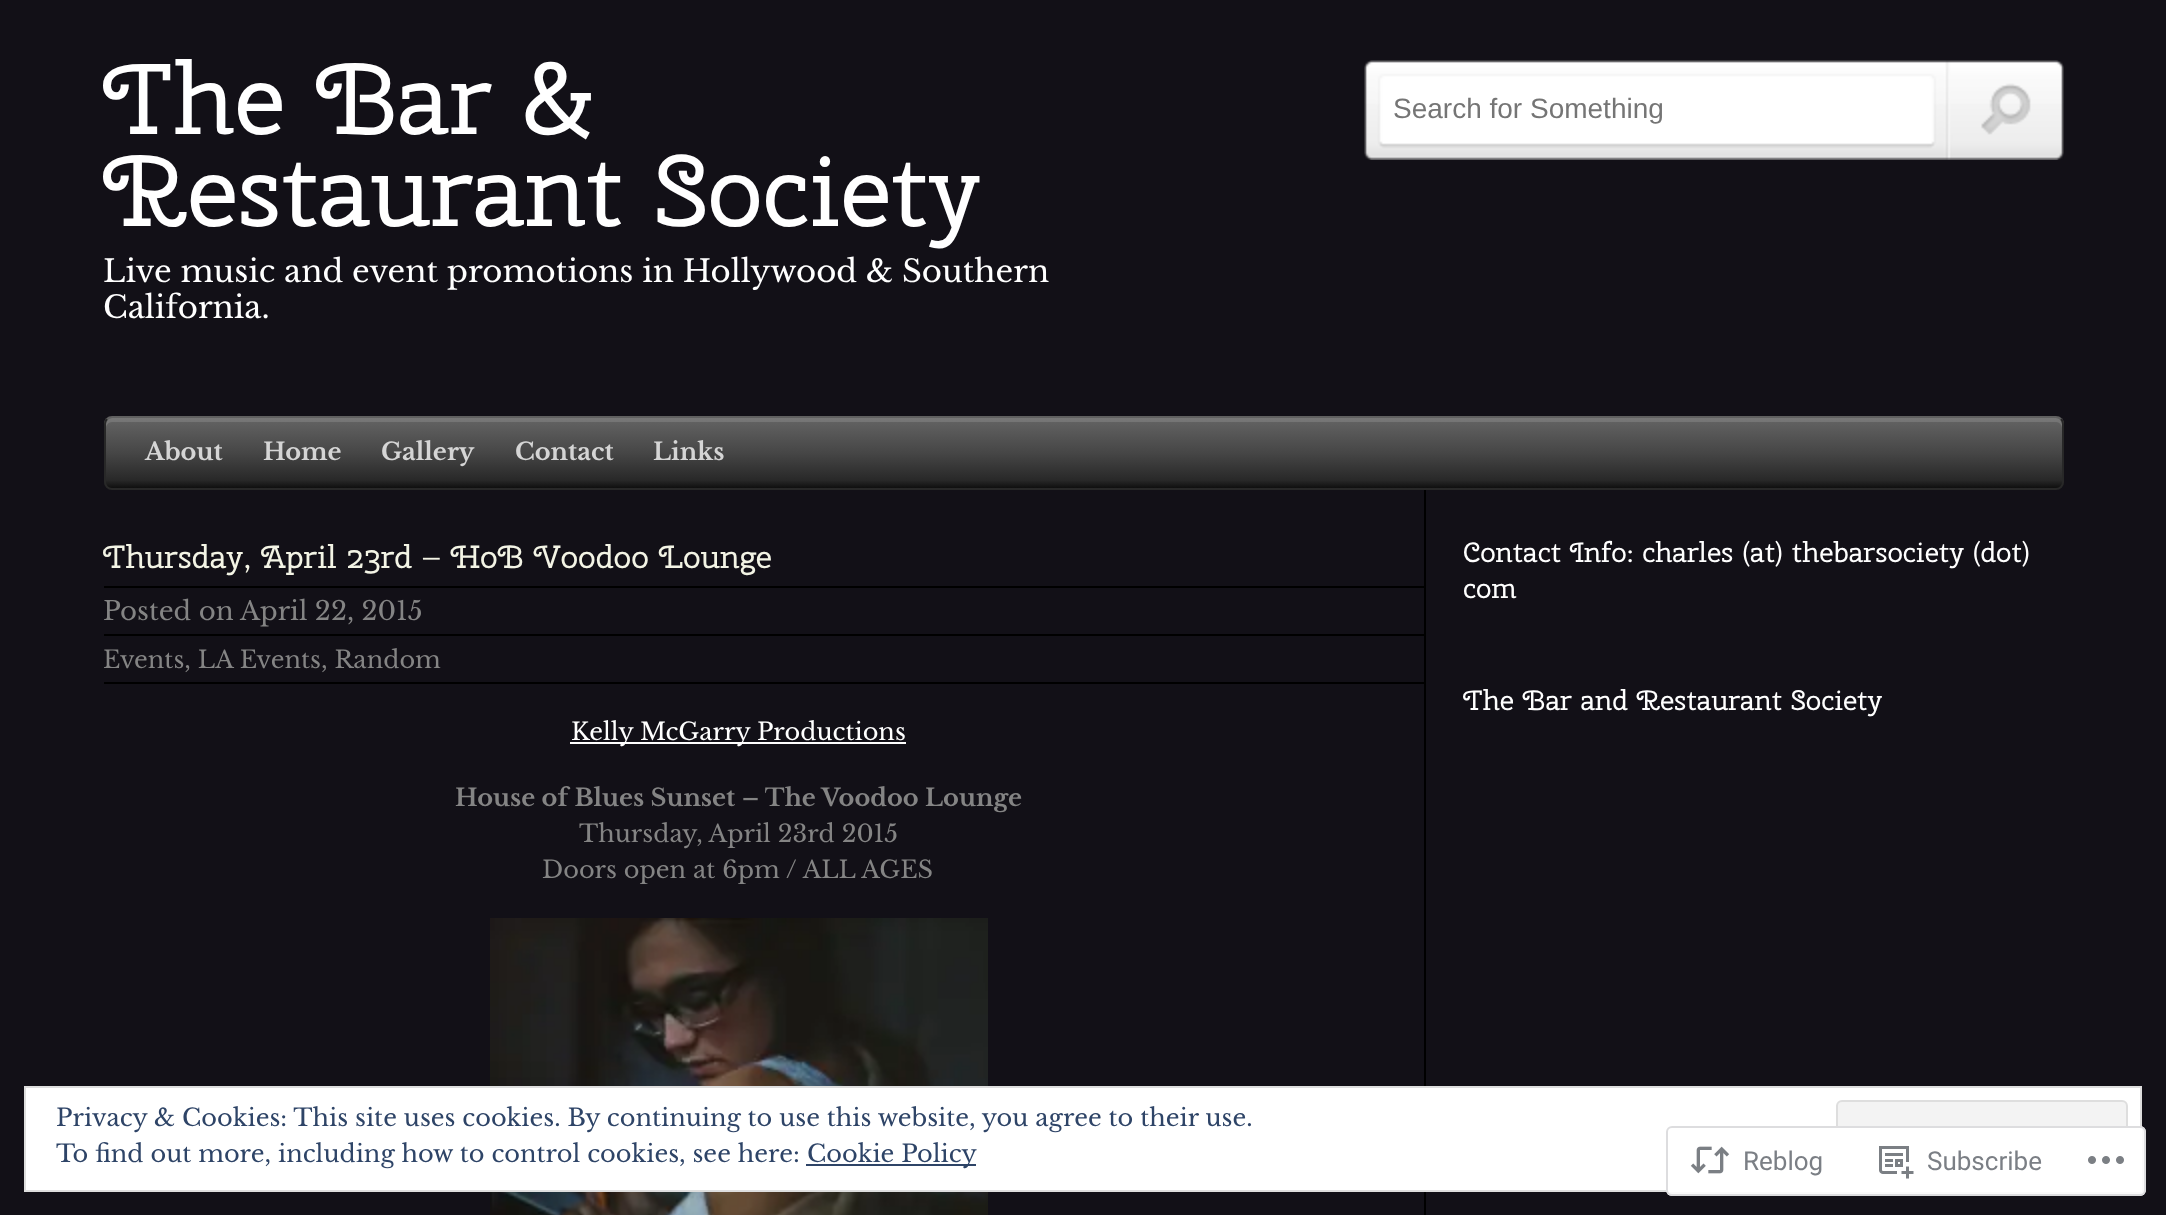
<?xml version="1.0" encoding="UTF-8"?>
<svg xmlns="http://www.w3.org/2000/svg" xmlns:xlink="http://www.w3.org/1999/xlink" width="2166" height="1215">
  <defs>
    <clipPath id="clip1"><rect x="104" y="416" width="1960" height="74" rx="8" /></clipPath>
    <linearGradient id="g1" gradientUnits="userSpaceOnUse" x1="1084" y1="488" x2="1084" y2="418"><stop offset="0" stop-color="#0f0f0f" /><stop offset="0.11" stop-color="#282828" /><stop offset="0.5" stop-color="#464646" /><stop offset="1" stop-color="#646464" /></linearGradient>
  </defs>
  <rect width="100%" height="100%" fill="#121017" />
  <image x="1364" y="60" width="700" height="100" xlink:href="image1.png" />
  <image x="1981" y="83" width="50" height="52" xlink:href="image2.png" />
  <g clip-path="url(#clip1)">
    <rect x="104" y="418" width="1960" height="70" fill="url(#g1)" />
  </g>
  <path d="M 112 422 h 1944 c 3 0 6 3 6 6 v -4 c 0 -3 -3 -6 -6 -6 h -1944 c -3 0 -6 3 -6 6 v 4 c 0 -3 3 -6 6 -6 z" fill="#ffffff" fill-opacity="0.13" />
  <path d="M 107 419 c 1.5 -1.5 3 -2 5 -2 h 1944 c 2 0 3.5 0.5 5 2" fill="none" stroke="#606060" stroke-width="2" />
  <path d="M 2061 419 c 1.5 1.5 2 3 2 5 v 58 c 0 2 -0.5 3.5 -2 5 c -1.5 1.5 -3 2 -5 2 h -1944 c -2 0 -3.5 -0.5 -5 -2 c -1.5 -1.5 -2 -3 -2 -5 v -58 c 0 -2 0.5 -3.5 2 -5" fill="none" stroke="#282828" stroke-width="2" />
  <rect x="1424" y="490" width="2" height="725" fill="#000000" />
  <rect x="104" y="586" width="1320" height="2" fill="#000000" />
  <rect x="104" y="634" width="1320" height="2" fill="#000000" />
  <rect x="104" y="682" width="1320" height="2" fill="#000000" />
  <rect x="570" y="742" width="336" height="2" fill="#ffffff" />
  <image x="490" y="918" width="498" height="297" xlink:href="image3.png" />
  <rect x="25" y="1087" width="2116" height="104" fill="#ffffff" stroke="#dedede" stroke-width="2" />
  <rect x="1837" y="1101" width="290" height="76" rx="5" fill="#f3f3f3" stroke="#dedede" stroke-width="2" />
  <rect x="806" y="1164" width="170" height="2" fill="#2e4467" />
  <rect x="1666" y="1126" width="480" height="70" rx="6" fill="#ffffff" fill-opacity="0.98" />
  <rect x="1667" y="1127" width="478" height="68" rx="5" fill="none" stroke="#dcdcde" stroke-opacity="0.98" stroke-width="2" />
  <image x="1690" y="1146" width="40" height="28" xlink:href="image4.png" />
  <image x="1879" y="1146" width="35" height="33" xlink:href="image5.png" />
  <image x="2088" y="1156" width="36" height="8" xlink:href="image6.png" />
  <text x="103" y="134" style="font-family: Cherry Swash; font-size: 100px; fill: #ffffff">The Bar &amp;</text>
  <text x="103" y="226" style="font-family: Cherry Swash; font-size: 100px; fill: #ffffff">Restaurant Society</text>
  <text x="103" y="282" style="font-family: Libre Baskerville; font-size: 30.85px; fill: #ffffff">Live music and event promotions in Hollywood &amp; Southern</text>
  <text x="103" y="318" style="font-family: Libre Baskerville; font-size: 30.85px; fill: #ffffff">California.</text>
  <text x="1393" y="118" style="font-family: Liberation Sans; font-size: 28px; fill: #757575">Search for Something</text>
  <text x="145" y="460" style="font-family: Libre Baskerville; font-size: 24px; font-weight: bold; fill: #d5d5d5">About</text>
  <text x="263" y="460" style="font-family: Libre Baskerville; font-size: 24px; font-weight: bold; fill: #d5d5d5">Home</text>
  <text x="381" y="460" style="font-family: Libre Baskerville; font-size: 24px; font-weight: bold; fill: #d5d5d5">Gallery</text>
  <text x="515" y="460" style="font-family: Libre Baskerville; font-size: 24px; font-weight: bold; fill: #d5d5d5">Contact</text>
  <text x="653" y="460" style="font-family: Libre Baskerville; font-size: 24px; font-weight: bold; fill: #d5d5d5">Links</text>
  <text x="103" y="568" style="font-family: Cherry Swash; font-size: 32px; fill: #f3f4e5">Thursday, April 23rd – HoB Voodoo Lounge</text>
  <text x="103" y="620" style="font-family: Libre Baskerville; font-size: 26px; fill: #848484">Posted on April 22, 2015</text>
  <text x="103" y="668" style="font-family: Libre Baskerville; font-size: 24px; fill: #848484">Events, LA Events, Random</text>
  <text x="571" y="740" style="font-family: Libre Baskerville; font-size: 24px; fill: #ffffff">Kelly McGarry Productions</text>
  <text x="455" y="806" style="font-family: Libre Baskerville; font-size: 24px; font-weight: bold; fill: #848484">House of Blues Sunset – The Voodoo Lounge</text>
  <text x="579" y="842" style="font-family: Libre Baskerville; font-size: 24px; fill: #848484">Thursday, April 23rd 2015</text>
  <text x="542" y="878" style="font-family: Libre Baskerville; font-size: 24px; fill: #848484">Doors open at 6pm / ALL AGES</text>
  <text x="1463" y="562" style="font-family: Cherry Swash; font-size: 28px; fill: #ffffff">Contact Info: charles (at) thebarsociety (dot)</text>
  <text x="1463" y="598" style="font-family: Cherry Swash; font-size: 28px; fill: #ffffff">com</text>
  <text x="1463" y="710" style="font-family: Cherry Swash; font-size: 28px; fill: #ffffff">The Bar and Restaurant Society</text>
  <text x="56" y="1126" style="font-family: Libre Baskerville; font-size: 24px; fill: #2e4467">Privacy &amp; Cookies: This site uses cookies. By continuing to use this website, you agree to their use.</text>
  <text x="56" y="1162" style="font-family: Libre Baskerville; font-size: 24px; fill: #2e4467">To find out more, including how to control cookies, see here:</text>
  <text x="807" y="1162" style="font-family: Libre Baskerville; font-size: 24px; fill: #2e4467">Cookie Policy</text>
  <text x="1743" y="1170" style="font-family: Roboto; font-size: 26px; fill: #7b7f85">Reblog</text>
  <text x="1927" y="1170" style="font-family: Roboto; font-size: 26px; fill: #7b7f85">Subscribe</text>
</svg>
